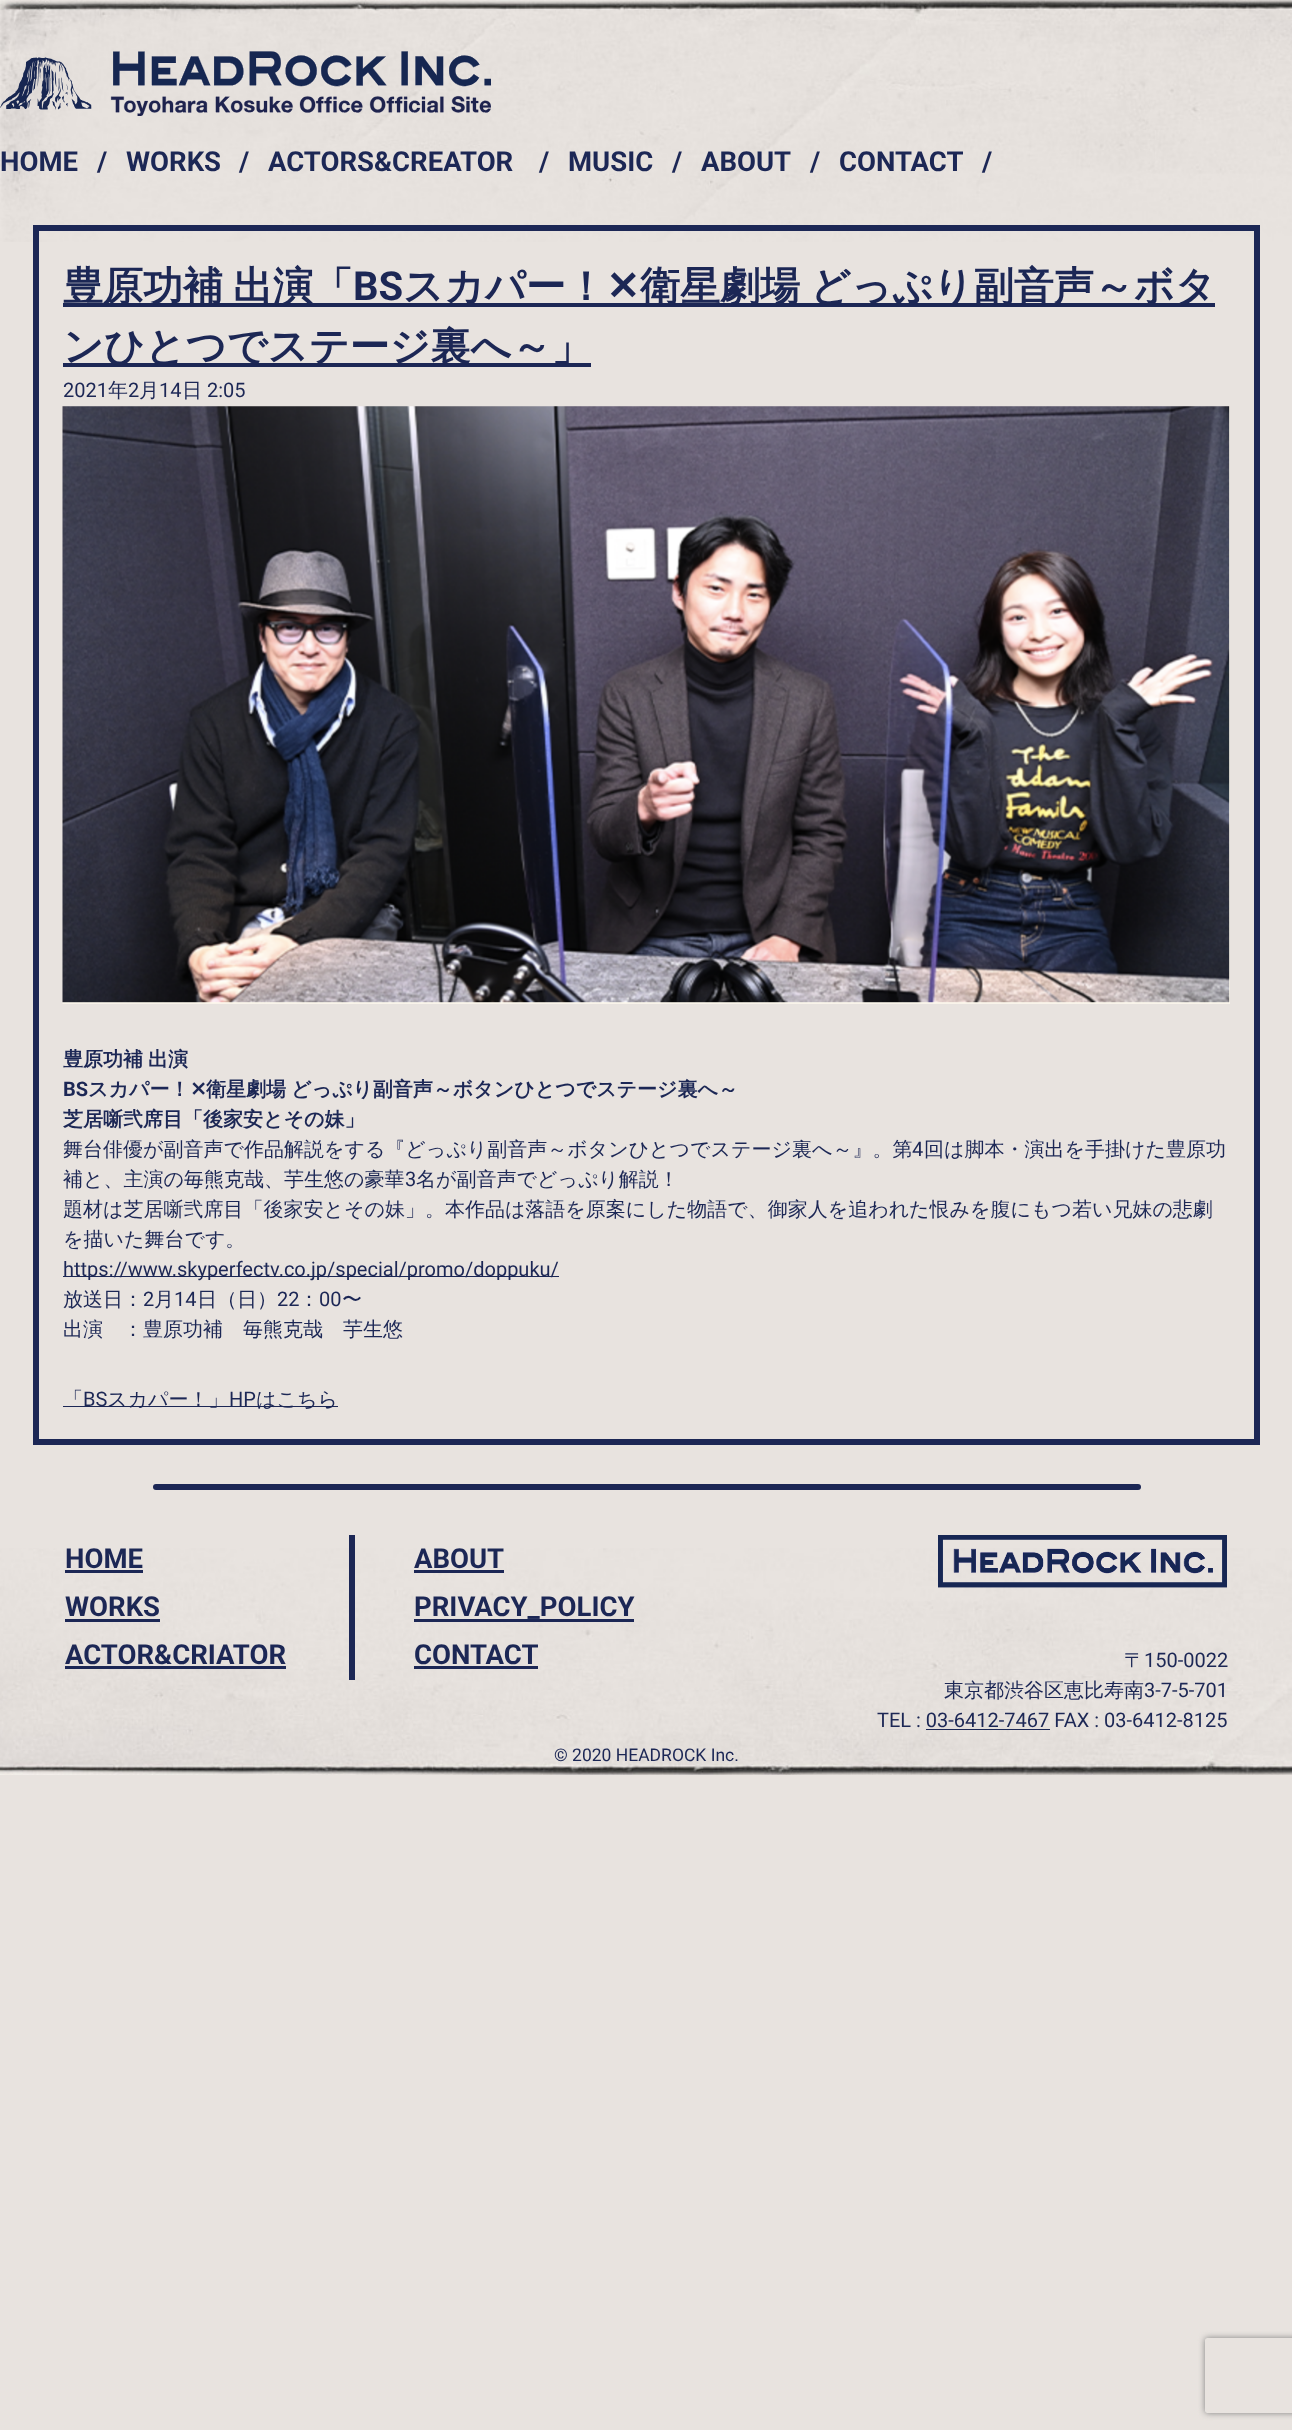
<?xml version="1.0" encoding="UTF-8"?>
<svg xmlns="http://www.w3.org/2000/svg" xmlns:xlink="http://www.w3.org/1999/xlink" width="1292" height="2430">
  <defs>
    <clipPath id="clip1"><path d="M 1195 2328 h 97 v 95 h -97 z m 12.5 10 h 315 c 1.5 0 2.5 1 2.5 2.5 v 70 c 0 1.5 -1 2.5 -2.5 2.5 h -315 c -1.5 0 -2.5 -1 -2.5 -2.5 v -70 c 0 -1.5 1 -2.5 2.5 -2.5 z" clip-rule="evenodd" /></clipPath>
  </defs>
  <rect width="100%" height="100%" fill="#e8e3df" />
  <image x="0" y="0" width="1292" height="242" xlink:href="image1.png" />
  <image x="0" y="51" width="491" height="65" xlink:href="image2.png" />
  <rect x="36" y="228" width="1221" height="1214" fill="none" stroke="#1c2755" stroke-width="6" />
  <rect x="63" y="303" width="1152" height="4" fill="#1c2755" />
  <rect x="63" y="363" width="528" height="4" fill="#1c2755" />
  <image x="62" y="406" width="1168" height="598" xlink:href="image3.png" />
  <rect x="63" y="1276" width="496" height="1" fill="#1c2755" />
  <rect x="63" y="1406" width="275" height="1" fill="#1c2755" />
  <image x="0" y="1548" width="1292" height="227" xlink:href="image4.png" />
  <rect x="153" y="1484" width="988" height="6" rx="3" fill="#1c2755" />
  <rect x="349" y="1535" width="6" height="145" fill="#1c2755" />
  <rect x="65" y="1570" width="78" height="3" fill="#1c2755" />
  <rect x="65" y="1619" width="95" height="3" fill="#1c2755" />
  <rect x="65" y="1666" width="221" height="3" fill="#1c2755" />
  <rect x="414" y="1570" width="90" height="3" fill="#1c2755" />
  <rect x="414" y="1619" width="220" height="3" fill="#1c2755" />
  <rect x="414" y="1666" width="124" height="3" fill="#1c2755" />
  <image x="938" y="1535" width="289" height="53" xlink:href="image5.png" />
  <rect x="926" y="1729" width="124" height="1" fill="#1c2755" />
  <g clip-path="url(#clip1)">
    <rect x="1205" y="2338" width="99" height="75" rx="2.5" fill="#808080" filter="blur(3px)" />
  </g>
  <text x="0" y="171" style="font-family: Roboto; font-size: 27.5px; font-weight: bold; fill: #1c2755">HOME</text>
  <text x="97" y="171" style="font-family: Roboto; font-size: 27.5px; font-weight: bold; fill: #1c2755">/</text>
  <text x="126" y="171" style="font-family: Roboto; font-size: 27.5px; font-weight: bold; fill: #1c2755">WORKS</text>
  <text x="239" y="171" style="font-family: Roboto; font-size: 27.5px; font-weight: bold; fill: #1c2755">/</text>
  <text x="268" y="171" style="font-family: Roboto; font-size: 27.5px; font-weight: bold; fill: #1c2755">ACTORS&amp;CREATOR</text>
  <text x="539" y="171" style="font-family: Roboto; font-size: 27.5px; font-weight: bold; fill: #1c2755">/</text>
  <text x="568" y="171" style="font-family: Roboto; font-size: 27.5px; font-weight: bold; fill: #1c2755">MUSIC</text>
  <text x="672" y="171" style="font-family: Roboto; font-size: 27.5px; font-weight: bold; fill: #1c2755">/</text>
  <text x="701" y="171" style="font-family: Roboto; font-size: 27.5px; font-weight: bold; fill: #1c2755">ABOUT</text>
  <text x="810" y="171" style="font-family: Roboto; font-size: 27.5px; font-weight: bold; fill: #1c2755">/</text>
  <text x="839" y="171" style="font-family: Roboto; font-size: 27.5px; font-weight: bold; fill: #1c2755">CONTACT</text>
  <text x="982" y="171" style="font-family: Roboto; font-size: 27.5px; font-weight: bold; fill: #1c2755">/</text>
  <text x="63" y="300" style="font-family: WenQuanYi Zen Hei; font-size: 40px; font-weight: bold; fill: #1c2755">豊原功補</text>
  <text x="233" y="300" style="font-family: WenQuanYi Zen Hei; font-size: 40px; font-weight: bold; fill: #1c2755">出演「</text>
  <text x="353" y="300" style="font-family: Roboto; font-size: 40px; font-weight: bold; fill: #1c2755">BS</text>
  <text x="403" y="300" style="font-family: WenQuanYi Zen Hei; font-size: 40px; font-weight: bold; fill: #1c2755">スカパー！</text>
  <text x="606" y="300" style="font-family: DejaVu Sans; font-size: 40px; font-weight: bold; fill: #1c2755">✕</text>
  <text x="640" y="300" word-spacing="-2" style="font-family: WenQuanYi Zen Hei; font-size: 40px; font-weight: bold; fill: #1c2755">衛星劇場 どっぷり副音声～ボタ</text>
  <text x="63" y="360" style="font-family: WenQuanYi Zen Hei; font-size: 40px; font-weight: bold; fill: #1c2755">ンひとつでステージ裏へ～」</text>
  <text x="63" y="397" style="font-family: Roboto; font-size: 20px; fill: #1c2755">2021</text>
  <text x="108" y="397" style="font-family: WenQuanYi Zen Hei; font-size: 20px; font-weight: 500; fill: #1c2755">年</text>
  <text x="128" y="397" style="font-family: Roboto; font-size: 20px; fill: #1c2755">2</text>
  <text x="139" y="397" style="font-family: WenQuanYi Zen Hei; font-size: 20px; font-weight: 500; fill: #1c2755">月</text>
  <text x="159" y="397" style="font-family: Roboto; font-size: 20px; fill: #1c2755">14</text>
  <text x="182" y="397" style="font-family: WenQuanYi Zen Hei; font-size: 20px; font-weight: 500; fill: #1c2755">日</text>
  <text x="207" y="397" style="font-family: Roboto; font-size: 20px; fill: #1c2755">2:05</text>
  <text x="63" y="1066" word-spacing="-1" style="font-family: WenQuanYi Zen Hei; font-size: 20px; font-weight: bold; fill: #1c2755">豊原功補 出演</text>
  <text x="63" y="1096" style="font-family: Roboto; font-size: 20px; font-weight: bold; fill: #1c2755">BS</text>
  <text x="88" y="1096" style="font-family: WenQuanYi Zen Hei; font-size: 20px; font-weight: bold; fill: #1c2755">スカパー！</text>
  <text x="190" y="1096" style="font-family: DejaVu Sans; font-size: 20px; font-weight: bold; fill: #1c2755">✕</text>
  <text x="206" y="1096" word-spacing="-1" style="font-family: WenQuanYi Zen Hei; font-size: 20px; font-weight: bold; fill: #1c2755">衛星劇場 どっぷり副音声～ボタンひとつでステージ裏へ～</text>
  <text x="63" y="1126" style="font-family: WenQuanYi Zen Hei; font-size: 20px; font-weight: bold; fill: #1c2755">芝居噺弐席目「後家安とその妹」</text>
  <text x="63" y="1156" style="font-family: WenQuanYi Zen Hei; font-size: 20px; font-weight: 500; fill: #1c2755">舞台俳優が副音声で作品解説をする『どっぷり副音声～ボタンひとつでステージ裏へ～』。第</text>
  <text x="912" y="1156" style="font-family: Roboto; font-size: 20px; fill: #1c2755">4</text>
  <text x="924" y="1156" style="font-family: WenQuanYi Zen Hei; font-size: 20px; font-weight: 500; fill: #1c2755">回は脚本・演出を手掛けた豊原功</text>
  <text x="63" y="1186" style="font-family: WenQuanYi Zen Hei; font-size: 20px; font-weight: 500; fill: #1c2755">補と、主演の毎熊克哉、芋生悠の豪華</text>
  <text x="405" y="1186" style="font-family: Roboto; font-size: 20px; fill: #1c2755">3</text>
  <text x="416" y="1186" style="font-family: WenQuanYi Zen Hei; font-size: 20px; font-weight: 500; fill: #1c2755">名が副音声でどっぷり解説！</text>
  <text x="63" y="1216" style="font-family: WenQuanYi Zen Hei; font-size: 20px; font-weight: 500; fill: #1c2755">題材は芝居噺弐席目「後家安とその妹」。本作品は落語を原案にした物語で、御家人を追われた恨みを腹にもつ若い兄妹の悲劇</text>
  <text x="63" y="1246" style="font-family: WenQuanYi Zen Hei; font-size: 20px; font-weight: 500; fill: #1c2755">を描いた舞台です。</text>
  <text x="63" y="1276" style="font-family: Roboto; font-size: 20px; fill: #1c2755">https://www.skyperfectv.co.jp/special/promo/doppuku/</text>
  <text x="63" y="1306" style="font-family: WenQuanYi Zen Hei; font-size: 20px; font-weight: 500; fill: #1c2755">放送日：</text>
  <text x="143" y="1306" style="font-family: Roboto; font-size: 20px; fill: #1c2755">2</text>
  <text x="154" y="1306" style="font-family: WenQuanYi Zen Hei; font-size: 20px; font-weight: 500; fill: #1c2755">月</text>
  <text x="174" y="1306" style="font-family: Roboto; font-size: 20px; fill: #1c2755">14</text>
  <text x="197" y="1306" style="font-family: WenQuanYi Zen Hei; font-size: 20px; font-weight: 500; fill: #1c2755">日（日）</text>
  <text x="277" y="1306" style="font-family: Roboto; font-size: 20px; fill: #1c2755">22</text>
  <text x="299" y="1306" style="font-family: WenQuanYi Zen Hei; font-size: 20px; font-weight: 500; fill: #1c2755">：</text>
  <text x="319" y="1306" style="font-family: Roboto; font-size: 20px; fill: #1c2755">00</text>
  <text x="342" y="1306" style="font-family: WenQuanYi Zen Hei; font-size: 20px; font-weight: 500; fill: #1c2755">〜</text>
  <text x="63" y="1336" style="font-family: WenQuanYi Zen Hei; font-size: 20px; font-weight: 500; fill: #1c2755">出演　：豊原功補　毎熊克哉　芋生悠</text>
  <text x="63" y="1406" style="font-family: WenQuanYi Zen Hei; font-size: 20px; font-weight: 500; fill: #1c2755">「</text>
  <text x="83" y="1406" style="font-family: Roboto; font-size: 20px; fill: #1c2755">BS</text>
  <text x="107" y="1406" style="font-family: WenQuanYi Zen Hei; font-size: 20px; font-weight: 500; fill: #1c2755">スカパー！」</text>
  <text x="229" y="1406" style="font-family: Roboto; font-size: 20px; fill: #1c2755">HP</text>
  <text x="256" y="1406" style="font-family: WenQuanYi Zen Hei; font-size: 20px; font-weight: 500; fill: #1c2755">はこちら</text>
  <text x="65" y="1568" style="font-family: Roboto; font-size: 27.5px; font-weight: bold; fill: #1c2755">HOME</text>
  <text x="65" y="1616" style="font-family: Roboto; font-size: 27.5px; font-weight: bold; fill: #1c2755">WORKS</text>
  <text x="65" y="1664" style="font-family: Roboto; font-size: 27.5px; font-weight: bold; fill: #1c2755">ACTOR&amp;CRIATOR</text>
  <text x="414" y="1568" style="font-family: Roboto; font-size: 27.5px; font-weight: bold; fill: #1c2755">ABOUT</text>
  <text x="414" y="1616" style="font-family: Roboto; font-size: 27.5px; font-weight: bold; fill: #1c2755">PRIVACY_POLICY</text>
  <text x="414" y="1664" style="font-family: Roboto; font-size: 27.5px; font-weight: bold; fill: #1c2755">CONTACT</text>
  <text x="1124" y="1667" style="font-family: WenQuanYi Zen Hei; font-size: 20px; font-weight: 500; fill: #1c2755">〒</text>
  <text x="1144" y="1667" style="font-family: Roboto; font-size: 20px; fill: #1c2755">150-0022</text>
  <text x="944" y="1697" style="font-family: WenQuanYi Zen Hei; font-size: 20px; font-weight: 500; fill: #1c2755">東京都渋谷区恵比寿南</text>
  <text x="1144" y="1697" style="font-family: Roboto; font-size: 20px; fill: #1c2755">3-7-5-701</text>
  <text x="877" y="1727" style="font-family: Roboto; font-size: 20px; fill: #1c2755">TEL : 03-6412-7467 FAX : 03-6412-8125</text>
  <text x="554" y="1761" style="font-family: Roboto; font-size: 17.5px; fill: #1c2755">© 2020 HEADROCK Inc.</text>
</svg>
